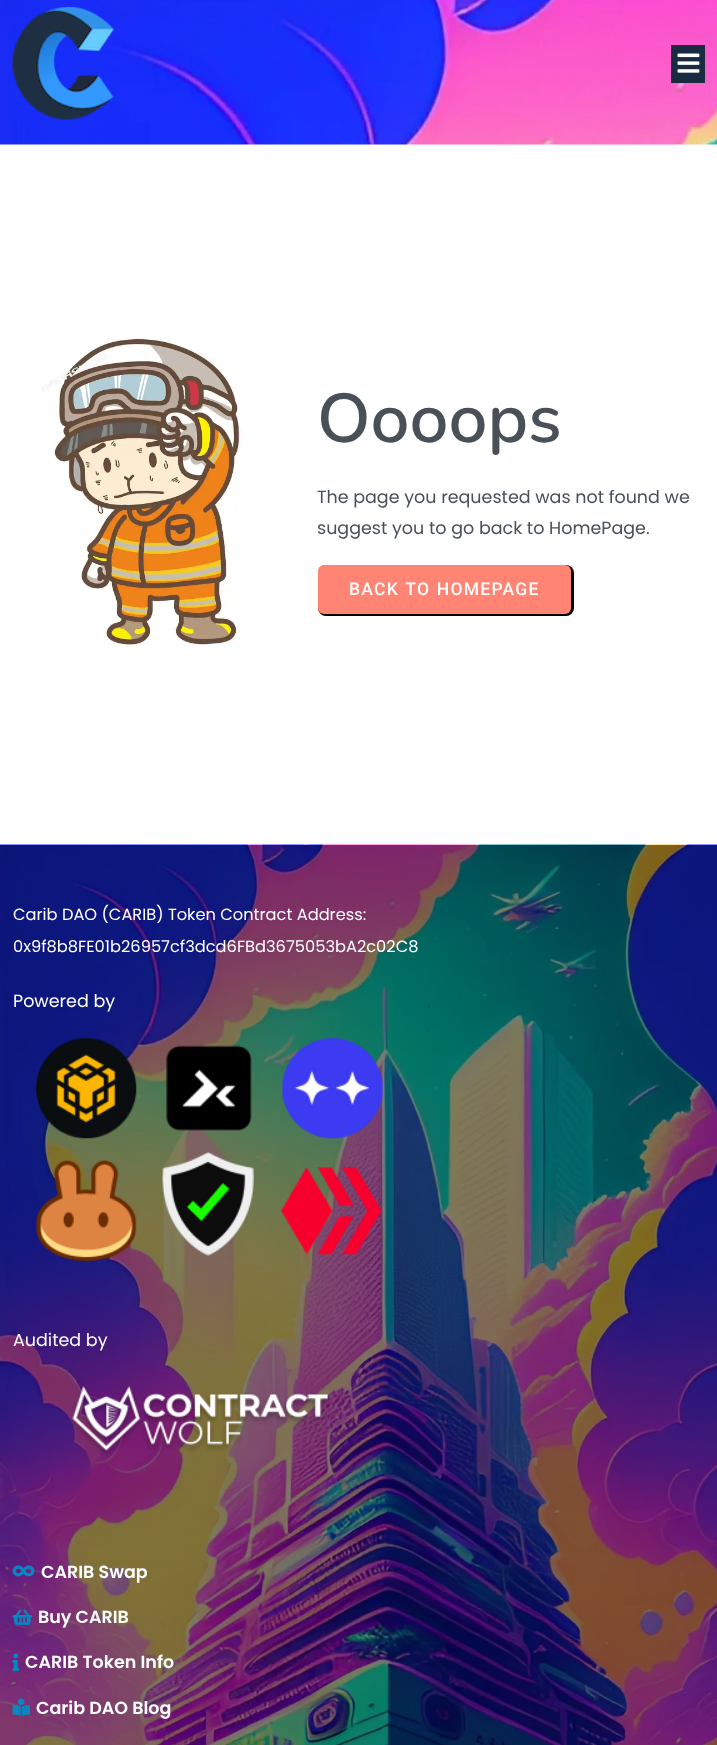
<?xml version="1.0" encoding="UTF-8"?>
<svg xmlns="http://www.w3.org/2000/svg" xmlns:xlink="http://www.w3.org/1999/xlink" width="717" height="1745">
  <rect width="100%" height="100%" fill="#ffffff" />
  <image x="0" y="0" width="717" height="145" xlink:href="image1.png" />
  <image x="12" y="7" width="102" height="113" xlink:href="image2.png" />
  <rect x="671" y="45" width="34" height="38" fill="#182b41" />
  <image x="677" y="53" width="23" height="20" xlink:href="image3.png" />
  <image x="41" y="337" width="203" height="309" xlink:href="image4.png" />
  <rect x="318" y="565" width="256" height="51" rx="8" fill="#000000" filter="blur(0.5px)" />
  <rect x="318" y="565" width="253" height="49" rx="6" fill="#ff8474" />
  <image x="0" y="844" width="717" height="901" xlink:href="image5.png" />
  <image x="36" y="1038" width="101" height="101" xlink:href="image6.png" />
  <image x="166" y="1045" width="86" height="86" xlink:href="image7.png" />
  <image x="282" y="1038" width="101" height="101" xlink:href="image8.png" />
  <image x="36" y="1160" width="101" height="101" xlink:href="image9.png" />
  <image x="162" y="1152" width="92" height="104" xlink:href="image10.png" />
  <image x="281" y="1166" width="101" height="89" xlink:href="image11.png" />
  <image x="71" y="1385" width="259" height="71" xlink:href="image12.png" />
  <image x="12" y="1565" width="23" height="12" xlink:href="image13.png" />
  <image x="12" y="1609" width="21" height="16" xlink:href="image14.png" />
  <image x="12" y="1653" width="8" height="18" xlink:href="image15.png" />
  <image x="12" y="1698" width="18" height="18" xlink:href="image16.png" />
  <text x="317" y="442" style="font-family: Nunito; font-size: 69px; font-weight: 600; fill: #495057">Oooops</text>
  <text x="317" y="503" style="font-family: Poppins; font-size: 17.5px; fill: #495057">The page you requested was not found we</text>
  <text x="317" y="534" style="font-family: Poppins; font-size: 17.5px; fill: #495057">suggest you to go back to HomePage.</text>
  <text x="349" y="595" word-spacing="1" style="font-family: Roboto; font-size: 17.5px; font-weight: 500; letter-spacing: 1.25px; fill: #ffffff">BACK TO HOMEPAGE</text>
  <text x="13" y="920" style="font-family: Poppins; font-size: 16.25px; fill: #ffffff">Carib DAO (CARIB) Token Contract Address:</text>
  <text x="13" y="952" style="font-family: Poppins; font-size: 16.25px; fill: #ffffff">0x9f8b8FE01b26957cf3dcd6FBd3675053bA2c02C8</text>
  <text x="13" y="1007" style="font-family: Poppins; font-size: 17.5px; fill: #ffffff">Powered by</text>
  <text x="13" y="1346" style="font-family: Poppins; font-size: 17.5px; fill: #ffffff">Audited by</text>
  <text x="41" y="1578" style="font-family: Poppins; font-size: 17.5px; font-weight: 600; fill: #ffffff">CARIB Swap</text>
  <text x="38" y="1623" style="font-family: Poppins; font-size: 17.5px; font-weight: 600; fill: #ffffff">Buy CARIB</text>
  <text x="25" y="1668" style="font-family: Poppins; font-size: 17.5px; font-weight: 600; fill: #ffffff">CARIB Token Info</text>
  <text x="36" y="1714" style="font-family: Poppins; font-size: 17.5px; font-weight: 600; fill: #ffffff">Carib DAO Blog</text>
</svg>
